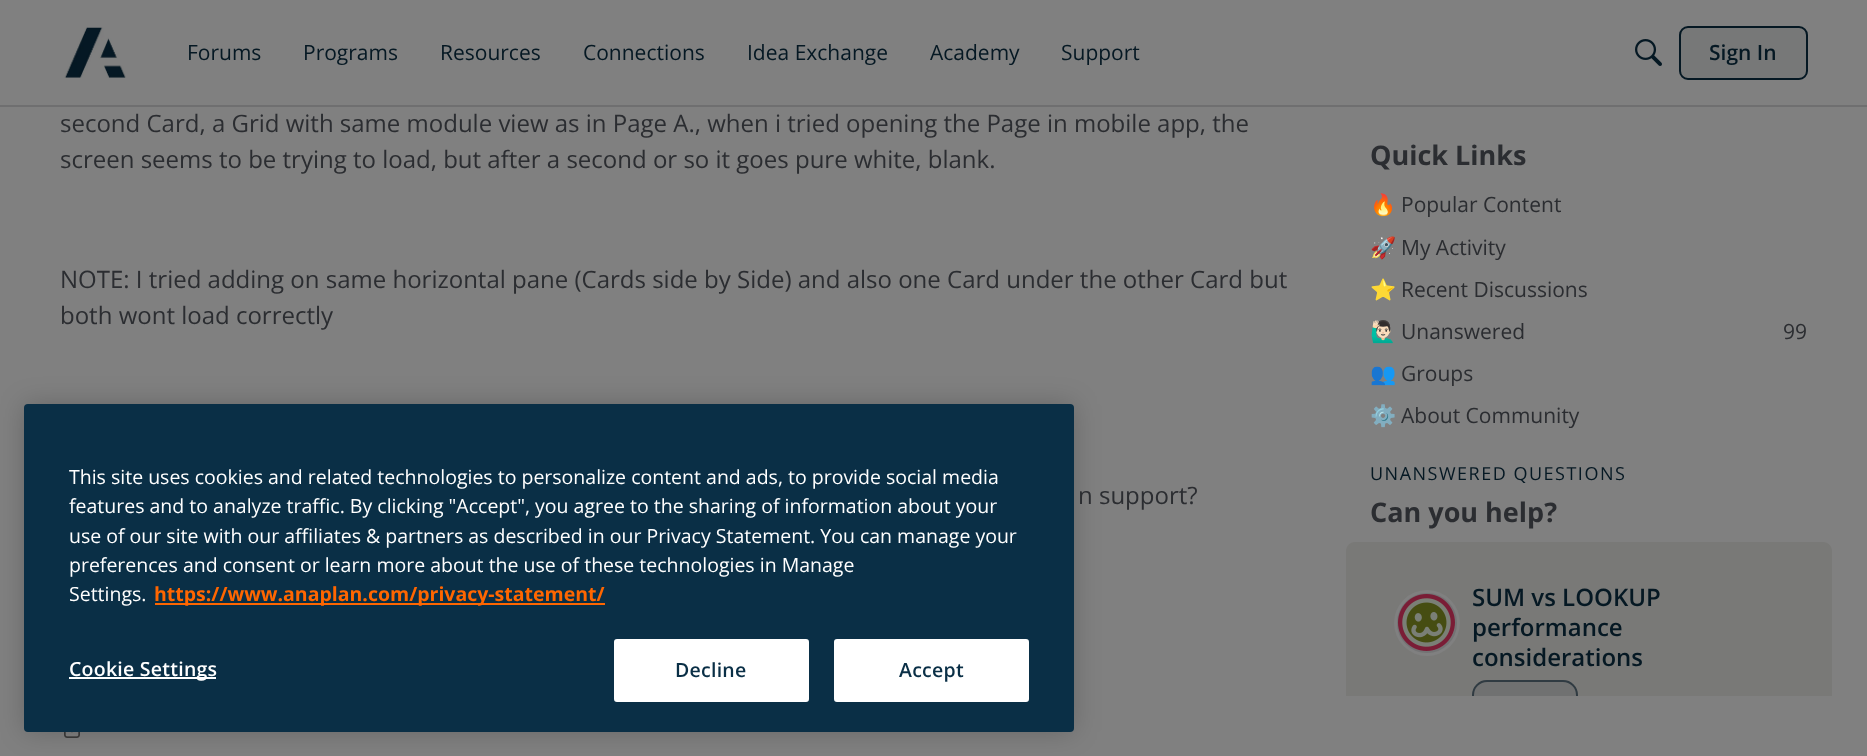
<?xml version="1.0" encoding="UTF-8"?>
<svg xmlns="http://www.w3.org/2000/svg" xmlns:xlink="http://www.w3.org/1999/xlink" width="1867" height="756">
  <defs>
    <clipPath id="clip1"><rect x="1340" y="71" width="498" height="625" /></clipPath>
  </defs>
  <rect width="100%" height="100%" fill="#808080" />
  <rect y="105" width="1867" height="2" fill="#6f6f70" />
  <image x="64" y="27" width="62" height="51" xlink:href="image1.png" />
  <image x="1635" y="39" width="27" height="27" xlink:href="image2.png" />
  <rect x="1680" y="27" width="127" height="52" rx="8" fill="#777878" stroke="#051823" stroke-width="2" />
  <image x="64" y="732" width="16" height="6" xlink:href="image3.png" />
  <path d="M 1355 542 h 468 c 5 0 9 4 9 9 v 145 h -486 v -145 c 0 -5 4 -9 9 -9 z" fill="#797977" />
  <circle cx="1427" cy="623" r="33" fill="#808080" />
  <circle cx="1427" cy="623" r="29" fill="none" stroke="#737374" stroke-width="2" />
  <image x="1398" y="594" width="57" height="57" xlink:href="image4.png" />
  <g clip-path="url(#clip1)">
    <rect x="1472" y="680" width="106" height="30" rx="15" fill="#707171" />
    <rect x="1473" y="681" width="104" height="28" rx="14" fill="none" stroke="#051823" stroke-opacity="0.6" stroke-width="2" />
  </g>
  <rect x="24" y="404" width="1050" height="328" rx="4" fill="#000000" fill-opacity="0.2" filter="blur(13.5px)" />
  <rect x="24" y="404" width="1050" height="328" rx="4" fill="#0a2f46" />
  <rect x="155" y="603" width="450" height="2" fill="#ff6600" />
  <rect x="69" y="677" width="147" height="2" fill="#ffffff" />
  <rect x="615" y="640" width="193" height="61" rx="2" fill="#ffffff" stroke="#ffffff" stroke-width="2" />
  <rect x="835" y="640" width="193" height="61" rx="2" fill="#ffffff" stroke="#ffffff" stroke-width="2" />
  <text x="187" y="60" style="font-family: Open Sans; font-size: 21px; fill: #051823">Forums</text>
  <text x="303" y="60" style="font-family: Open Sans; font-size: 21px; fill: #051823">Programs</text>
  <text x="440" y="60" style="font-family: Open Sans; font-size: 21px; fill: #051823">Resources</text>
  <text x="583" y="60" style="font-family: Open Sans; font-size: 21px; fill: #051823">Connections</text>
  <text x="747" y="60" style="font-family: Open Sans; font-size: 21px; fill: #051823">Idea Exchange</text>
  <text x="930" y="60" style="font-family: Open Sans; font-size: 21px; fill: #051823">Academy</text>
  <text x="1061" y="60" style="font-family: Open Sans; font-size: 21px; fill: #051823">Support</text>
  <text x="1709" y="60" style="font-family: Open Sans; font-size: 21px; font-weight: 600; fill: #051823">Sign In</text>
  <text x="60" y="132" style="font-family: Open Sans; font-size: 24px; fill: #2b2d31">second Card, a Grid with same module view as in Page A., when i tried opening the Page in mobile app, the</text>
  <text x="60" y="168" style="font-family: Open Sans; font-size: 24px; fill: #2b2d31">screen seems to be trying to load, but after a second or so it goes pure white, blank.</text>
  <text x="60" y="288" style="font-family: Open Sans; font-size: 24px; fill: #2b2d31">NOTE: I tried adding on same horizontal pane (Cards side by Side) and also one Card under the other Card but</text>
  <text x="60" y="324" style="font-family: Open Sans; font-size: 24px; fill: #2b2d31">both wont load correctly</text>
  <text x="1078" y="504" style="font-family: Open Sans; font-size: 24px; fill: #2b2d31">n support?</text>
  <text x="1370" y="165" style="font-family: Open Sans; font-size: 27px; font-weight: bold; fill: #2b2d31">Quick Links</text>
  <text x="1370" y="212" style="font-family: Noto Color Emoji; font-size: 21px; fill: #2b2d31">🔥</text>
  <text x="1401" y="212" style="font-family: Open Sans; font-size: 21px; fill: #2b2d31">Popular Content</text>
  <text x="1370" y="255" style="font-family: Noto Color Emoji; font-size: 21px; fill: #2b2d31">🚀</text>
  <text x="1401" y="255" style="font-family: Open Sans; font-size: 21px; fill: #2b2d31">My Activity</text>
  <text x="1370" y="297" style="font-family: Noto Color Emoji; font-size: 21px; fill: #2b2d31">⭐️</text>
  <text x="1401" y="297" style="font-family: Open Sans; font-size: 21px; fill: #2b2d31">Recent Discussions</text>
  <text x="1370" y="339" style="font-family: Noto Color Emoji; font-size: 21px; fill: #2b2d31">🙋🏻‍♂️</text>
  <text x="1401" y="339" style="font-family: Open Sans; font-size: 21px; fill: #2b2d31">Unanswered</text>
  <text x="1783" y="339" style="font-family: Open Sans; font-size: 21px; fill: #2b2d31">99</text>
  <text x="1370" y="381" style="font-family: Noto Color Emoji; font-size: 21px; fill: #2b2d31">👥</text>
  <text x="1401" y="381" style="font-family: Open Sans; font-size: 21px; fill: #2b2d31">Groups</text>
  <text x="1370" y="423" style="font-family: Noto Color Emoji; font-size: 21px; fill: #2b2d31">⚙️</text>
  <text x="1401" y="423" style="font-family: Open Sans; font-size: 21px; fill: #2b2d31">About Community</text>
  <text x="1370" y="480" style="font-family: Open Sans; font-size: 18px; letter-spacing: 1.5px; fill: #051823">UNANSWERED QUESTIONS</text>
  <text x="1370" y="522" style="font-family: Open Sans; font-size: 27px; font-weight: bold; fill: #2b2d31">Can you help?</text>
  <text x="1472" y="606" style="font-family: Open Sans; font-size: 24px; font-weight: 600; fill: #051823">SUM vs LOOKUP</text>
  <text x="1472" y="636" style="font-family: Open Sans; font-size: 24px; font-weight: 600; fill: #051823">performance</text>
  <text x="1472" y="666" style="font-family: Open Sans; font-size: 24px; font-weight: 600; fill: #051823">considerations</text>
  <text x="69" y="484" style="font-family: Open Sans; font-size: 19.5px; fill: #ffffff">This site uses cookies and related technologies to personalize content and ads, to provide social media</text>
  <text x="69" y="513" style="font-family: Open Sans; font-size: 19.5px; fill: #ffffff">features and to analyze traffic. By clicking "Accept", you agree to the sharing of information about your</text>
  <text x="69" y="543" style="font-family: Open Sans; font-size: 19.5px; fill: #ffffff">use of our site with our affiliates &amp; partners as described in our Privacy Statement. You can manage your</text>
  <text x="69" y="572" style="font-family: Open Sans; font-size: 19.5px; fill: #ffffff">preferences and consent or learn more about the use of these technologies in Manage</text>
  <text x="69" y="601" style="font-family: Open Sans; font-size: 19.5px; fill: #ffffff">Settings.</text>
  <text x="154" y="601" style="font-family: Open Sans; font-size: 19.5px; font-weight: bold; fill: #ff6600">https://www.anaplan.com/privacy-statement/</text>
  <text x="69" y="676" style="font-family: Open Sans; font-size: 19.5px; font-weight: 600; letter-spacing: 0.25px; fill: #ffffff">Cookie Settings</text>
  <text x="675" y="677" style="font-family: Open Sans; font-size: 19.5px; font-weight: 600; letter-spacing: 0.25px; fill: #0a2f46">Decline</text>
  <text x="899" y="677" style="font-family: Open Sans; font-size: 19.5px; font-weight: 600; letter-spacing: 0.25px; fill: #0a2f46">Accept</text>
</svg>
